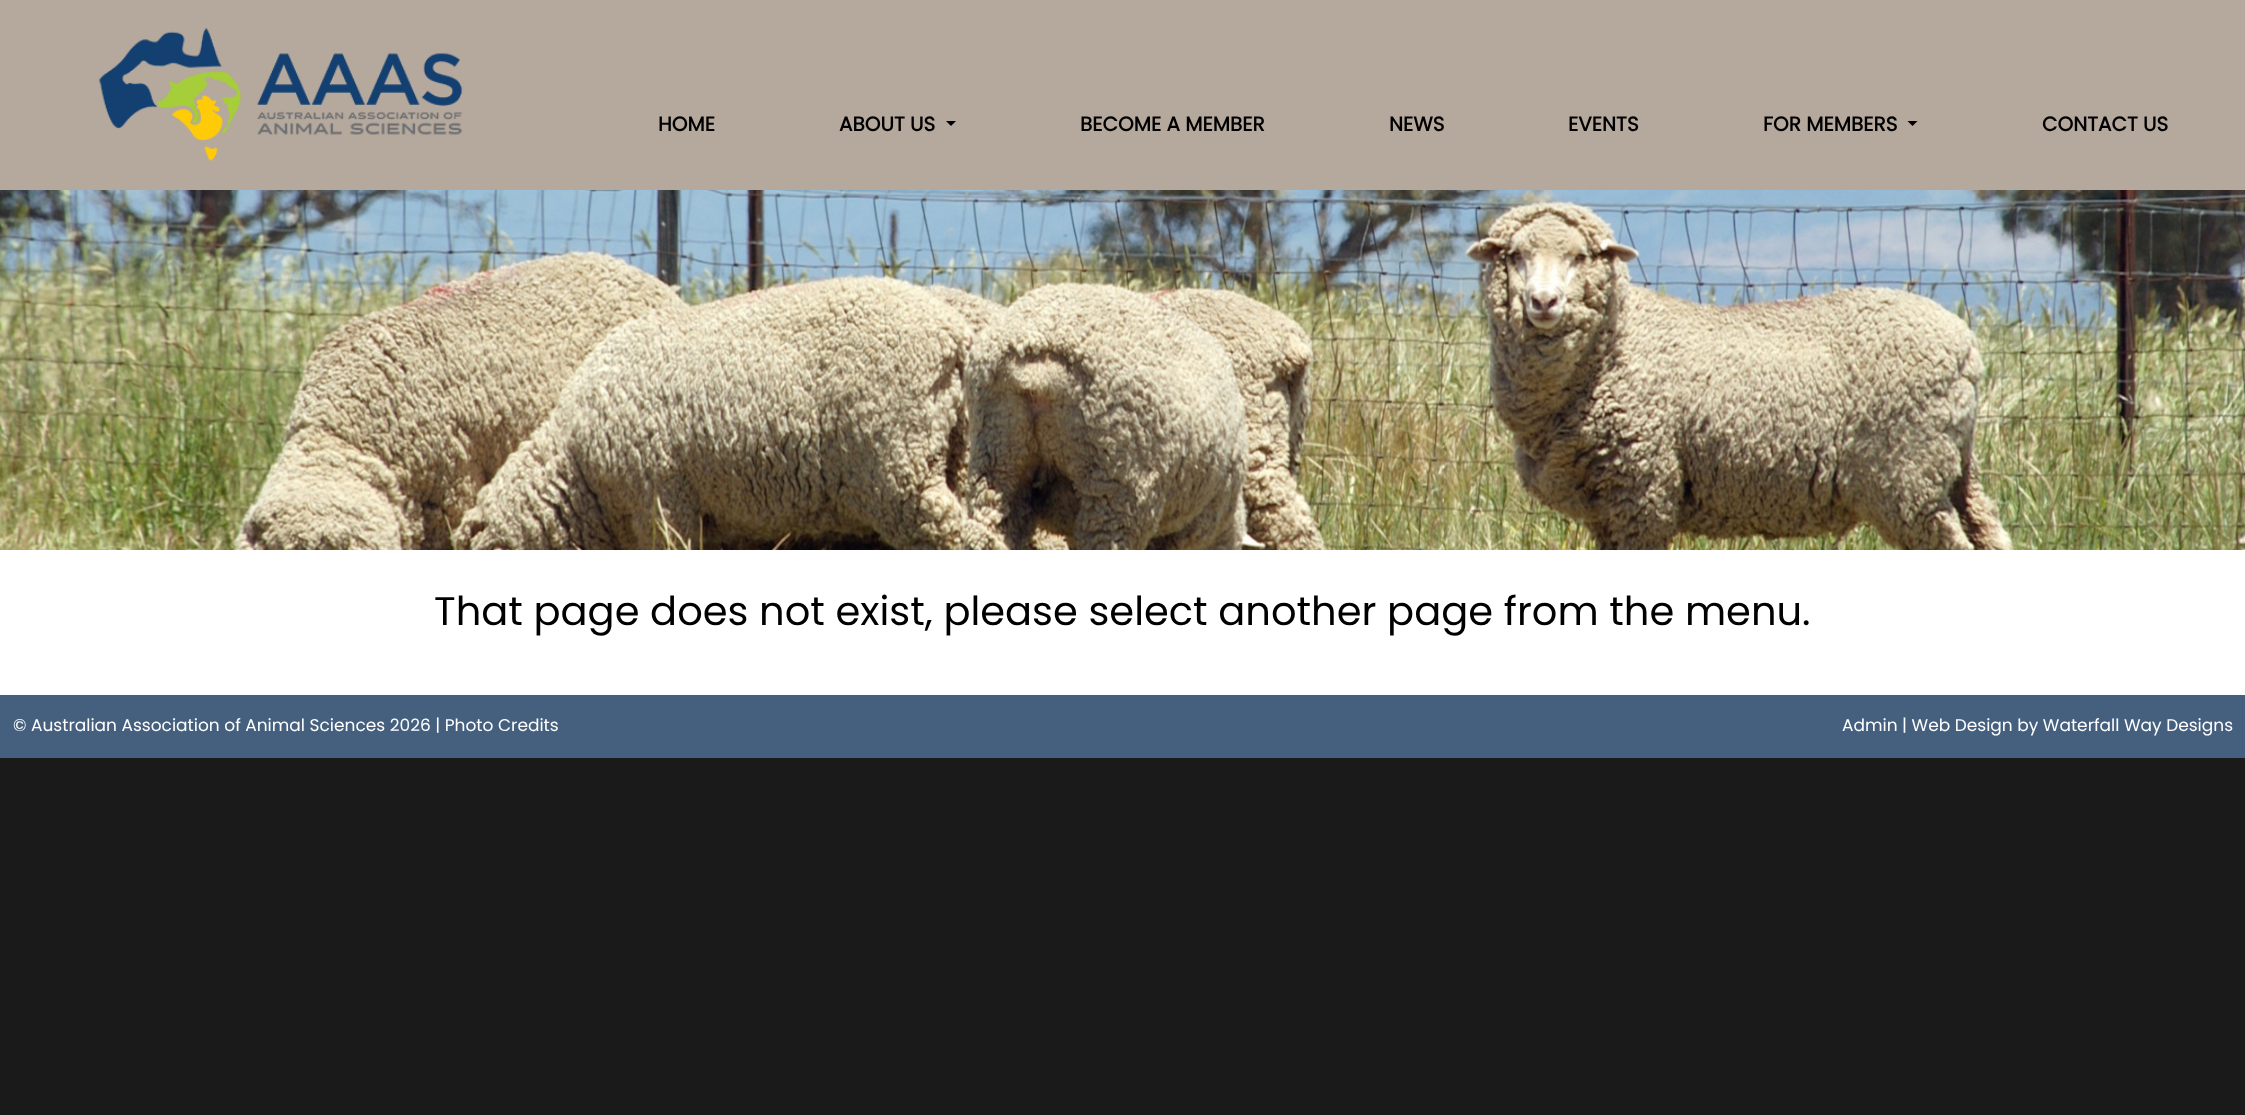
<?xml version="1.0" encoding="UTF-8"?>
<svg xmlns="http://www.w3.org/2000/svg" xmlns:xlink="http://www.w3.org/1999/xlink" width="2245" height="1115">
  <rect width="100%" height="100%" fill="#1a1a1a" />
  <rect width="2245" height="190" fill="#b5a89d" />
  <image x="99" y="28" width="364" height="133" xlink:href="image1.png" />
  <path d="M 946 121 h 10 l -5 5 z" fill="#000000" />
  <path d="M 1907.5 121 h 10 l -5 5 z" fill="#000000" />
  <image x="0" y="190" width="2245" height="360" xlink:href="image2.png" />
  <rect y="550" width="2245" height="145" fill="#ffffff" />
  <rect y="695" width="2245" height="63" fill="#44607e" />
  <text x="658" y="131" style="font-family: Poppins; font-size: 20px; font-weight: bold; fill: #000000">HOME</text>
  <text x="839" y="131" style="font-family: Poppins; font-size: 20px; font-weight: bold; fill: #000000">ABOUT US</text>
  <text x="1080" y="131" style="font-family: Poppins; font-size: 20px; font-weight: bold; fill: #000000">BECOME A MEMBER</text>
  <text x="1389" y="131" style="font-family: Poppins; font-size: 20px; font-weight: bold; fill: #000000">NEWS</text>
  <text x="1568" y="131" style="font-family: Poppins; font-size: 20px; font-weight: bold; fill: #000000">EVENTS</text>
  <text x="1763" y="131" style="font-family: Poppins; font-size: 20px; font-weight: bold; fill: #000000">FOR MEMBERS</text>
  <text x="2042" y="131" style="font-family: Poppins; font-size: 20px; font-weight: bold; fill: #000000">CONTACT US</text>
  <text x="434" y="625" style="font-family: Poppins; font-size: 40px; fill: #000000">That page does not exist, please select another page from the menu.</text>
  <text x="13" y="731" style="font-family: Poppins; font-size: 17px; fill: #ffffff">© Australian Association of Animal Sciences 2026 | Photo Credits</text>
  <text x="1842" y="731" style="font-family: Poppins; font-size: 17px; fill: #ffffff">Admin | Web Design by Waterfall Way Designs</text>
</svg>
